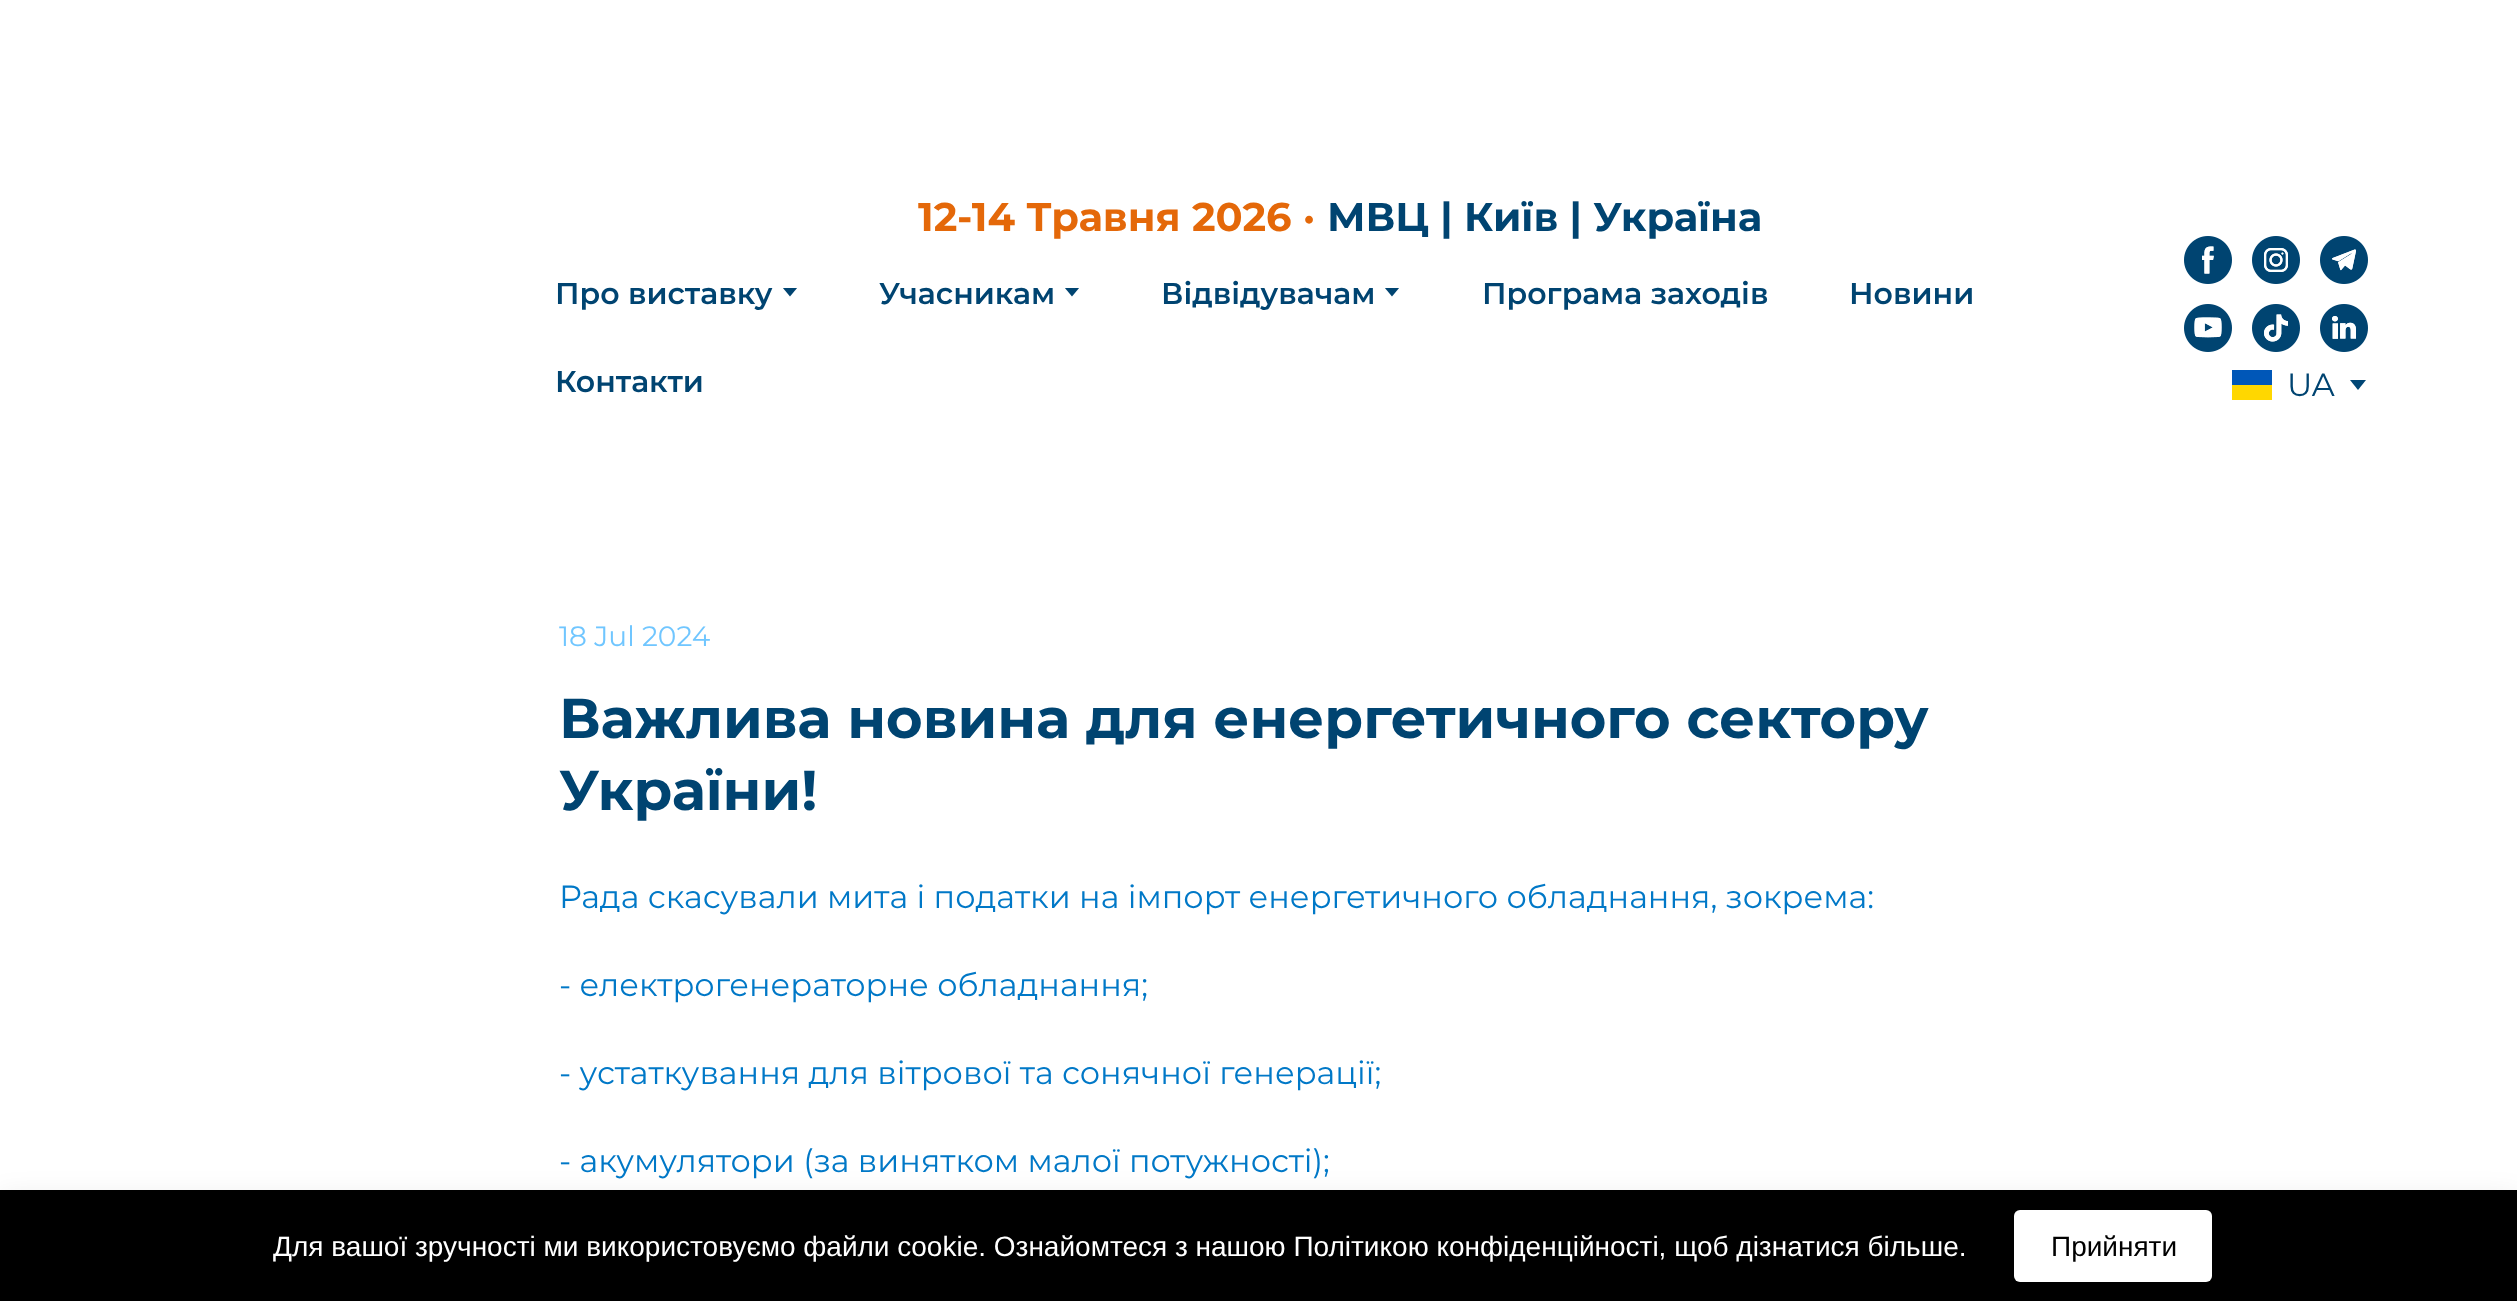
<?xml version="1.0" encoding="UTF-8"?>
<svg xmlns="http://www.w3.org/2000/svg" xmlns:xlink="http://www.w3.org/1999/xlink" width="2517" height="1301">
  <defs>
    <clipPath id="clip1"><rect x="780" y="288" width="18" height="10" /></clipPath>
    <clipPath id="clip2"><rect x="1062" y="288" width="18" height="10" /></clipPath>
    <clipPath id="clip3"><rect x="1382" y="288" width="20" height="10" /></clipPath>
  </defs>
  <rect width="100%" height="100%" fill="#ffffff" />
  <g clip-path="url(#clip1)">
    <path d="M 790 296.5 l 7.5 -9 h -15 z" fill="#004471" />
  </g>
  <g clip-path="url(#clip2)">
    <path d="M 1072 296.5 l 7.5 -9 h -15 z" fill="#004471" />
  </g>
  <g clip-path="url(#clip3)">
    <path d="M 1392 296.5 l 7.5 -9 h -15 z" fill="#004471" />
  </g>
  <image x="2184" y="236" width="48" height="48" xlink:href="image1.png" />
  <image x="2252" y="236" width="48" height="48" xlink:href="image2.png" />
  <image x="2320" y="236" width="48" height="48" xlink:href="image3.png" />
  <image x="2184" y="304" width="48" height="48" xlink:href="image4.png" />
  <image x="2252" y="304" width="48" height="48" xlink:href="image5.png" />
  <image x="2320" y="304" width="48" height="48" xlink:href="image6.png" />
  <rect x="2232" y="385" width="40" height="15" fill="#ffd700" />
  <rect x="2232" y="370" width="40" height="15" fill="#0057b8" />
  <path d="M 2358 390 l 8 -10 h -16 z" fill="#004675" />
  <rect y="1198" width="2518" height="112" fill="#000000" fill-opacity="0.1" filter="blur(14px)" />
  <rect y="1190" width="2517" height="111" fill="#000000" />
  <rect x="2014" y="1210" width="198" height="72" rx="6" fill="#ffffff" />
  <text x="918" y="231" style="font-family: Montserrat; font-size: 40px; font-weight: bold; fill: #e46809">12-14 Травня 2026 ·</text>
  <text x="1327" y="231" style="font-family: Montserrat; font-size: 40px; font-weight: bold; fill: #004471">МВЦ | Київ | Україна</text>
  <text x="555" y="304" style="font-family: Montserrat; font-size: 30px; font-weight: 600; fill: #004471">Про виставку</text>
  <text x="879" y="304" style="font-family: Montserrat; font-size: 30px; font-weight: 600; fill: #004471">Учасникам</text>
  <text x="1161" y="304" style="font-family: Montserrat; font-size: 30px; font-weight: 600; fill: #004471">Відвідувачам</text>
  <text x="1482" y="304" style="font-family: Montserrat; font-size: 30px; font-weight: 600; fill: #004471">Програма заходів</text>
  <text x="1849" y="304" style="font-family: Montserrat; font-size: 30px; font-weight: 600; fill: #004471">Новини</text>
  <text x="555" y="392" style="font-family: Montserrat; font-size: 30px; font-weight: 600; fill: #004471">Контакти</text>
  <text x="2287" y="396" style="font-family: Montserrat; font-size: 32px; fill: #004471">UA</text>
  <text x="559" y="646" style="font-family: Montserrat; font-size: 28px; fill: #70c6ff">18 Jul 2024</text>
  <text x="559" y="738" style="font-family: Montserrat; font-size: 56px; font-weight: bold; fill: #004471">Важлива новина для енергетичного сектору</text>
  <text x="559" y="810" style="font-family: Montserrat; font-size: 56px; font-weight: bold; fill: #004471">України!</text>
  <text x="559" y="908" style="font-family: Montserrat; font-size: 32px; fill: #0078c7">Рада скасували мита і податки на імпорт енергетичного обладнання, зокрема:</text>
  <text x="559" y="996" style="font-family: Montserrat; font-size: 32px; fill: #0078c7">- електрогенераторне обладнання;</text>
  <text x="559" y="1084" style="font-family: Montserrat; font-size: 32px; fill: #0078c7">- устаткування для вітрової та сонячної генерації;</text>
  <text x="559" y="1172" style="font-family: Montserrat; font-size: 32px; fill: #0078c7">- акумулятори (за винятком малої потужності);</text>
  <text x="273" y="1256" style="font-family: Liberation Sans; font-size: 28px; fill: #ffffff">Для вашої зручності ми використовуємо файли cookie. Ознайомтеся з нашою Політикою конфіденційності, щоб дізнатися більше.</text>
  <text x="2051" y="1256" style="font-family: Liberation Sans; font-size: 28px; fill: #000000">Прийняти</text>
</svg>
